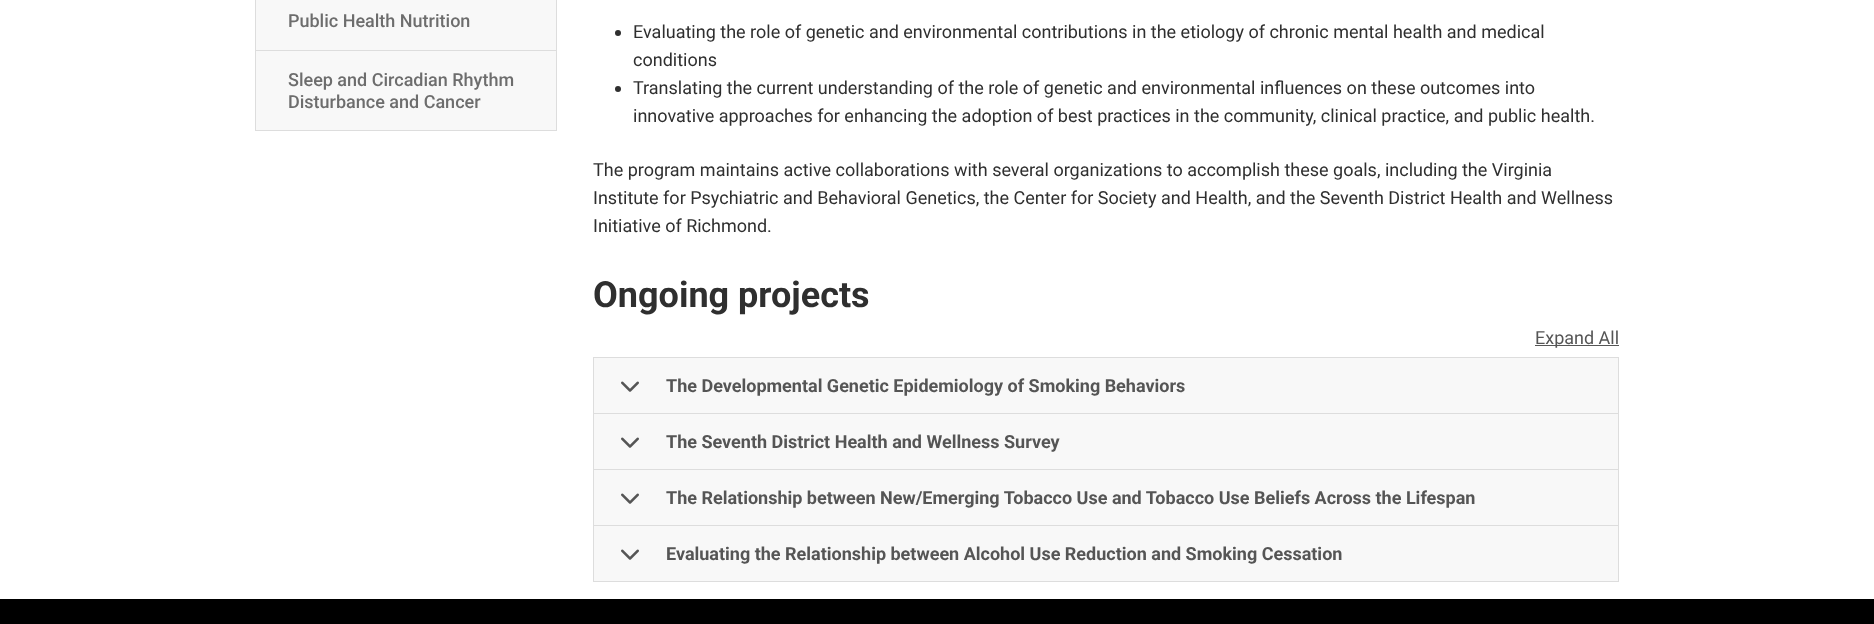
<?xml version="1.0" encoding="UTF-8"?>
<svg xmlns="http://www.w3.org/2000/svg" xmlns:xlink="http://www.w3.org/1999/xlink" width="1874" height="624">
  <rect width="100%" height="100%" fill="#ffffff" />
  <rect x="255.5" y="-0.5" width="301" height="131" fill="#f8f8f8" stroke="#dddddd" />
  <rect x="256" y="50" width="300" height="1" fill="#dddddd" />
  <circle cx="618" cy="33" r="3" fill="#2f2f2f" />
  <circle cx="618" cy="89" r="3" fill="#2f2f2f" />
  <rect x="1535" y="345" width="84" height="1" fill="#555555" />
  <rect x="593.5" y="357.5" width="1025" height="224" fill="none" stroke="#dddddd" />
  <rect x="594" y="358" width="1024" height="55" fill="#f8f8f8" />
  <rect x="594" y="413" width="1024" height="1" fill="#dddddd" />
  <image x="621" y="381" width="18" height="11" xlink:href="image1.png" />
  <rect x="594" y="414" width="1024" height="55" fill="#f8f8f8" />
  <rect x="594" y="469" width="1024" height="1" fill="#dddddd" />
  <image x="621" y="437" width="18" height="11" xlink:href="image1.png" />
  <rect x="594" y="470" width="1024" height="55" fill="#f8f8f8" />
  <rect x="594" y="525" width="1024" height="1" fill="#dddddd" />
  <image x="621" y="493" width="18" height="11" xlink:href="image1.png" />
  <rect x="594" y="526" width="1024" height="55" fill="#f8f8f8" />
  <image x="621" y="549" width="18" height="11" xlink:href="image1.png" />
  <rect y="599" width="1874" height="25" fill="#000000" />
  <text x="288" y="27" style="font-family: Roboto; font-size: 18px; font-weight: 500; fill: #6d6d6d">Public Health Nutrition</text>
  <text x="288" y="86" style="font-family: Roboto; font-size: 18px; font-weight: 500; fill: #6d6d6d">Sleep and Circadian Rhythm</text>
  <text x="288" y="108" style="font-family: Roboto; font-size: 18px; font-weight: 500; fill: #6d6d6d">Disturbance and Cancer</text>
  <text x="633" y="38" style="font-family: Roboto; font-size: 18px; fill: #2f2f2f">Evaluating the role of genetic and environmental contributions in the etiology of chronic mental health and medical</text>
  <text x="633" y="66" style="font-family: Roboto; font-size: 18px; fill: #2f2f2f">conditions</text>
  <text x="633" y="94" style="font-family: Roboto; font-size: 18px; fill: #2f2f2f">Translating the current understanding of the role of genetic and environmental influences on these outcomes into</text>
  <text x="633" y="122" style="font-family: Roboto; font-size: 18px; fill: #2f2f2f">innovative approaches for enhancing the adoption of best practices in the community, clinical practice, and public health.</text>
  <text x="593" y="176" style="font-family: Roboto; font-size: 18px; fill: #2f2f2f">The program maintains active collaborations with several organizations to accomplish these goals, including the Virginia</text>
  <text x="593" y="204" style="font-family: Roboto; font-size: 18px; fill: #2f2f2f">Institute for Psychiatric and Behavioral Genetics, the Center for Society and Health, and the Seventh District Health and Wellness</text>
  <text x="593" y="232" style="font-family: Roboto; font-size: 18px; fill: #2f2f2f">Initiative of Richmond.</text>
  <text x="593" y="307" style="font-family: Roboto; font-size: 36px; font-weight: bold; fill: #2f2f2f">Ongoing projects</text>
  <text x="1535" y="344" style="font-family: Roboto; font-size: 18px; fill: #555555">Expand All</text>
  <text x="666" y="392" style="font-family: Roboto; font-size: 18px; font-weight: bold; fill: #555555">The Developmental Genetic Epidemiology of Smoking Behaviors</text>
  <text x="666" y="448" style="font-family: Roboto; font-size: 18px; font-weight: bold; fill: #555555">The Seventh District Health and Wellness Survey</text>
  <text x="666" y="504" style="font-family: Roboto; font-size: 18px; font-weight: bold; fill: #555555">The Relationship between New/Emerging Tobacco Use and Tobacco Use Beliefs Across the Lifespan</text>
  <text x="666" y="560" style="font-family: Roboto; font-size: 18px; font-weight: bold; fill: #555555">Evaluating the Relationship between Alcohol Use Reduction and Smoking Cessation</text>
</svg>
